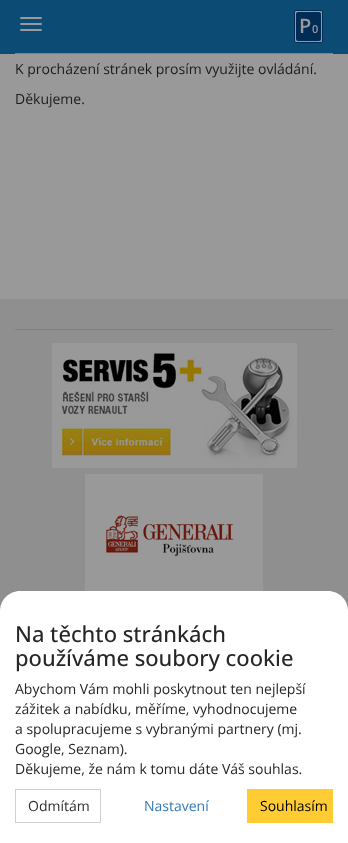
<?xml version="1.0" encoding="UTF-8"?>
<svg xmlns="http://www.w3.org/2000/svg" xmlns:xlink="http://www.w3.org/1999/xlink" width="348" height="843">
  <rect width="100%" height="100%" fill="#999999" />
  <rect width="348" height="54" fill="#0c4c74" />
  <rect x="20" y="17" width="22" height="2" rx="1" fill="#999999" />
  <rect x="20" y="23" width="22" height="2" rx="1" fill="#999999" />
  <rect x="20" y="29" width="22" height="2" rx="1" fill="#999999" />
  <rect x="294.5" y="10.5" width="28" height="32" rx="1.5" fill="#999999" stroke="#012c56" />
  <rect x="296" y="12" width="25" height="29" rx="2" fill="#012c56" />
  <rect x="15" y="53" width="318" height="1" fill="#808080" />
  <rect y="299" width="348" height="312" fill="#8f8f8f" />
  <rect x="15" y="329" width="318" height="1" fill="#808080" />
  <image x="52" y="343" width="245" height="125" xlink:href="image1.png" />
  <image x="85" y="474" width="178" height="117" xlink:href="image2.png" />
  <path d="M 20 591 h 308 c 11 0 20 9 20 20 v 232 h -348 v -232 c 0 -11 9 -20 20 -20 z" fill="#ffffff" />
  <rect x="15.5" y="789.5" width="85" height="33" fill="none" stroke="#d0d0d0" />
  <rect x="247" y="789" width="86" height="34" fill="#ffcc33" />
  <text x="299" y="33" style="font-family: Open Sans; font-size: 20px; font-weight: 600; fill: #999999">P</text>
  <text x="312" y="33" style="font-family: Open Sans; font-size: 11px; font-weight: 600; fill: #999999">0</text>
  <text x="15" y="74" style="font-family: Open Sans; font-size: 14px; fill: #1c1c1c">K procházení stránek prosím využijte ovládání.</text>
  <text x="15" y="104" style="font-family: Open Sans; font-size: 14px; fill: #1c1c1c">Děkujeme.</text>
  <text x="15" y="642" style="font-family: Open Sans; font-size: 22px; font-weight: 500; fill: #262626">Na těchto stránkách</text>
  <text x="15" y="666" style="font-family: Open Sans; font-size: 22px; font-weight: 500; fill: #262626">používáme soubory cookie</text>
  <text x="15" y="694" style="font-family: Open Sans; font-size: 14px; fill: #262626">Abychom Vám mohli poskytnout ten nejlepší</text>
  <text x="15" y="714" style="font-family: Open Sans; font-size: 14px; fill: #262626">zážitek a nabídku, měříme, vyhodnocujeme</text>
  <text x="15" y="734" style="font-family: Open Sans; font-size: 14px; fill: #262626">a spolupracujeme s vybranými partnery (mj.</text>
  <text x="15" y="754" style="font-family: Open Sans; font-size: 14px; fill: #262626">Google, Seznam).</text>
  <text x="15" y="774" style="font-family: Open Sans; font-size: 14px; fill: #262626">Děkujeme, že nám k tomu dáte Váš souhlas.</text>
  <text x="28" y="811" style="font-family: Open Sans; font-size: 14px; fill: #2f2f2e">Odmítám</text>
  <text x="144" y="811" style="font-family: Open Sans; font-size: 14px; fill: #337ab7">Nastavení</text>
  <text x="260" y="811" style="font-family: Open Sans; font-size: 14px; fill: #000000">Souhlasím</text>
</svg>
